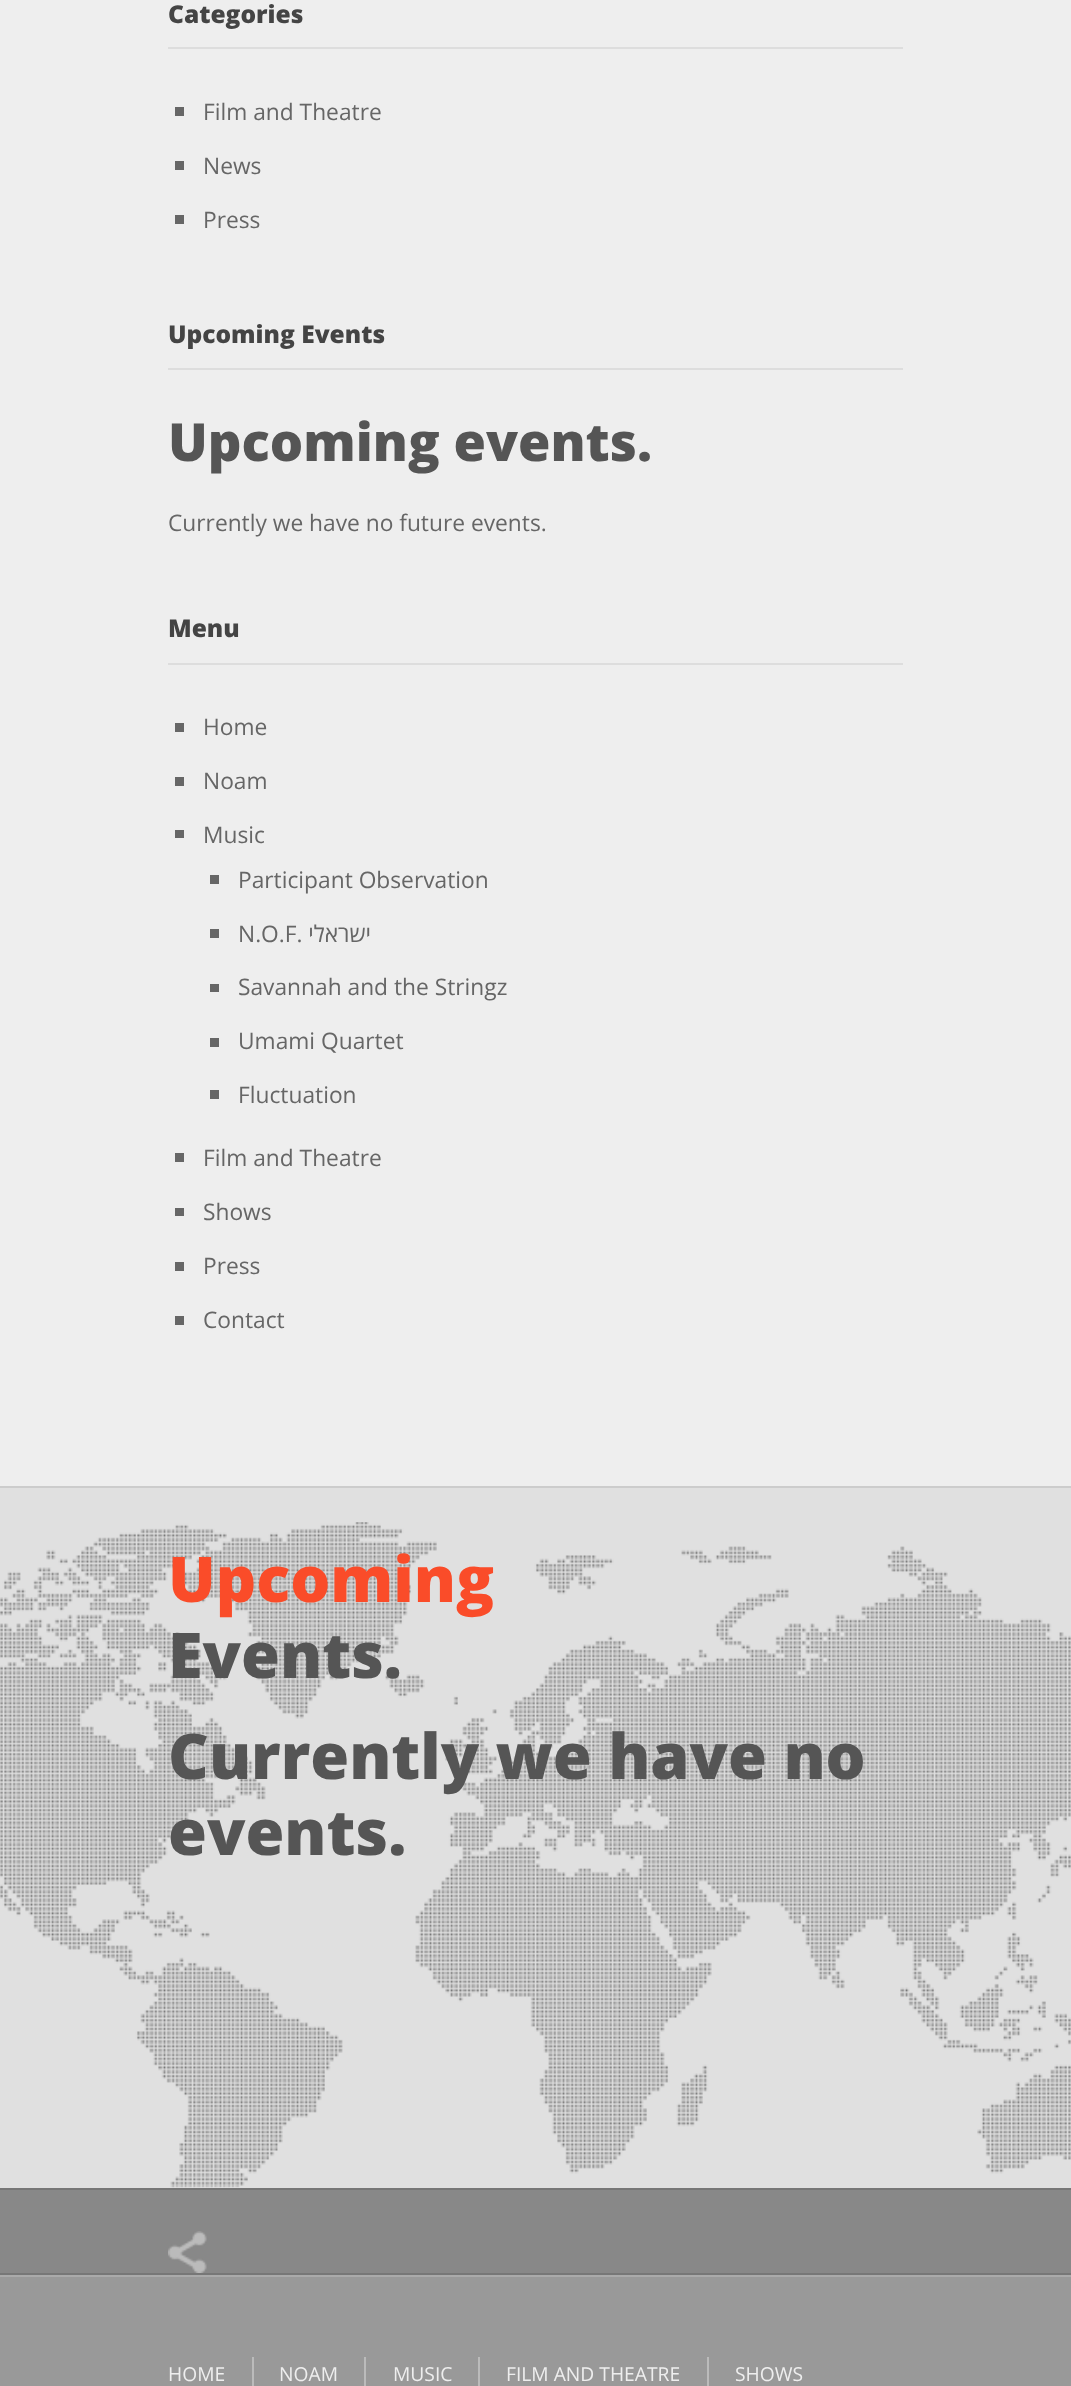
<?xml version="1.0" encoding="UTF-8"?>
<svg xmlns="http://www.w3.org/2000/svg" xmlns:xlink="http://www.w3.org/1999/xlink" width="1071" height="2386">
  <rect width="100%" height="100%" fill="#eeeeee" />
  <rect x="168" y="47" width="735" height="2" fill="#dddddd" />
  <rect x="175" y="107" width="9" height="9" fill="#666666" />
  <rect x="175" y="161" width="9" height="9" fill="#666666" />
  <rect x="175" y="215" width="9" height="9" fill="#666666" />
  <rect x="168" y="368" width="735" height="2" fill="#dddddd" />
  <rect x="168" y="663" width="735" height="2" fill="#dddddd" />
  <rect x="175" y="723" width="9" height="9" fill="#666666" />
  <rect x="175" y="777" width="9" height="9" fill="#666666" />
  <rect x="175" y="830" width="9" height="8" fill="#666666" />
  <rect x="210" y="875" width="9" height="9" fill="#666666" />
  <rect x="210" y="929" width="9" height="9" fill="#666666" />
  <rect x="210" y="984" width="9" height="8" fill="#666666" />
  <rect x="210" y="1038" width="9" height="9" fill="#666666" />
  <rect x="210" y="1090" width="9" height="9" fill="#666666" />
  <rect x="175" y="1153" width="9" height="9" fill="#666666" />
  <rect x="175" y="1208" width="9" height="8" fill="#666666" />
  <rect x="175" y="1262" width="9" height="9" fill="#666666" />
  <rect x="175" y="1316" width="9" height="9" fill="#666666" />
  <rect y="1488" width="1071" height="700" fill="#e0e0e0" />
  <image x="0" y="1522" width="1071" height="666" xlink:href="image1.png" />
  <rect y="1486" width="1071" height="2" fill="#cccccc" />
  <rect y="2190" width="1071" height="83" fill="#888888" />
  <rect y="2188" width="1071" height="2" fill="#777777" />
  <rect y="2273" width="1071" height="2" fill="#777777" />
  <image x="168" y="2231" width="39" height="42" xlink:href="image2.png" />
  <rect y="2277" width="1071" height="109" fill="#999999" />
  <rect y="2275" width="1071" height="2" fill="#aaaaaa" />
  <rect x="252" y="2357" width="2" height="29" fill="#bbbbbb" />
  <rect x="364" y="2357" width="2" height="29" fill="#bbbbbb" />
  <rect x="478" y="2357" width="2" height="29" fill="#bbbbbb" />
  <rect x="707" y="2357" width="2" height="29" fill="#bbbbbb" />
  <text x="168" y="23" style="font-family: Open Sans; font-size: 24.5px; font-weight: 800; fill: #444444">Categories</text>
  <text x="203" y="120" style="font-family: Open Sans; font-size: 22.75px; fill: #666666">Film and Theatre</text>
  <text x="203" y="174" style="font-family: Open Sans; font-size: 22.75px; fill: #666666">News</text>
  <text x="203" y="228" style="font-family: Open Sans; font-size: 22.75px; fill: #666666">Press</text>
  <text x="168" y="343" style="font-family: Open Sans; font-size: 24.5px; font-weight: 800; fill: #444444">Upcoming Events</text>
  <text x="168" y="461" style="font-family: Open Sans; font-size: 52.5px; font-weight: 800; fill: #555555">Upcoming events.</text>
  <text x="168" y="531" style="font-family: Open Sans; font-size: 22.75px; fill: #666666">Currently we have no future events.</text>
  <text x="168" y="637" style="font-family: Open Sans; font-size: 24.5px; font-weight: 800; fill: #444444">Menu</text>
  <text x="203" y="735" style="font-family: Open Sans; font-size: 22.75px; fill: #666666">Home</text>
  <text x="203" y="789" style="font-family: Open Sans; font-size: 22.75px; fill: #666666">Noam</text>
  <text x="203" y="843" style="font-family: Open Sans; font-size: 22.75px; fill: #666666">Music</text>
  <text x="238" y="888" style="font-family: Open Sans; font-size: 22.75px; fill: #666666">Participant Observation</text>
  <text x="238" y="942" style="font-family: Open Sans; font-size: 22.75px; fill: #666666">N.O.F.</text>
  <text x="371" y="942" style="font-family: Open Sans; font-size: 22.75px; direction: rtl; fill: #666666">ישראלי</text>
  <text x="238" y="995" style="font-family: Open Sans; font-size: 22.75px; fill: #666666">Savannah and the Stringz</text>
  <text x="238" y="1049" style="font-family: Open Sans; font-size: 22.75px; fill: #666666">Umami Quartet</text>
  <text x="238" y="1103" style="font-family: Open Sans; font-size: 22.75px; fill: #666666">Fluctuation</text>
  <text x="203" y="1166" style="font-family: Open Sans; font-size: 22.75px; fill: #666666">Film and Theatre</text>
  <text x="203" y="1220" style="font-family: Open Sans; font-size: 22.75px; fill: #666666">Shows</text>
  <text x="203" y="1274" style="font-family: Open Sans; font-size: 22.75px; fill: #666666">Press</text>
  <text x="203" y="1328" style="font-family: Open Sans; font-size: 22.75px; fill: #666666">Contact</text>
  <text x="168" y="1602" style="font-family: Open Sans; font-size: 63px; font-weight: 800; fill: #fa4c29">Upcoming</text>
  <text x="168" y="1678" style="font-family: Open Sans; font-size: 63px; font-weight: 800; fill: #555555">Events.</text>
  <text x="168" y="1779" style="font-family: Open Sans; font-size: 63px; font-weight: 800; fill: #555555">Currently we have no</text>
  <text x="168" y="1855" style="font-family: Open Sans; font-size: 63px; font-weight: 800; fill: #555555">events.</text>
  <text x="168" y="2381" style="font-family: Open Sans; font-size: 19.25px; fill: #eeeeee">HOME</text>
  <text x="279" y="2381" style="font-family: Open Sans; font-size: 19.25px; fill: #eeeeee">NOAM</text>
  <text x="393" y="2381" style="font-family: Open Sans; font-size: 19.25px; fill: #eeeeee">MUSIC</text>
  <text x="506" y="2381" style="font-family: Open Sans; font-size: 19.25px; fill: #eeeeee">FILM AND THEATRE</text>
  <text x="735" y="2381" style="font-family: Open Sans; font-size: 19.25px; fill: #eeeeee">SHOWS</text>
</svg>
